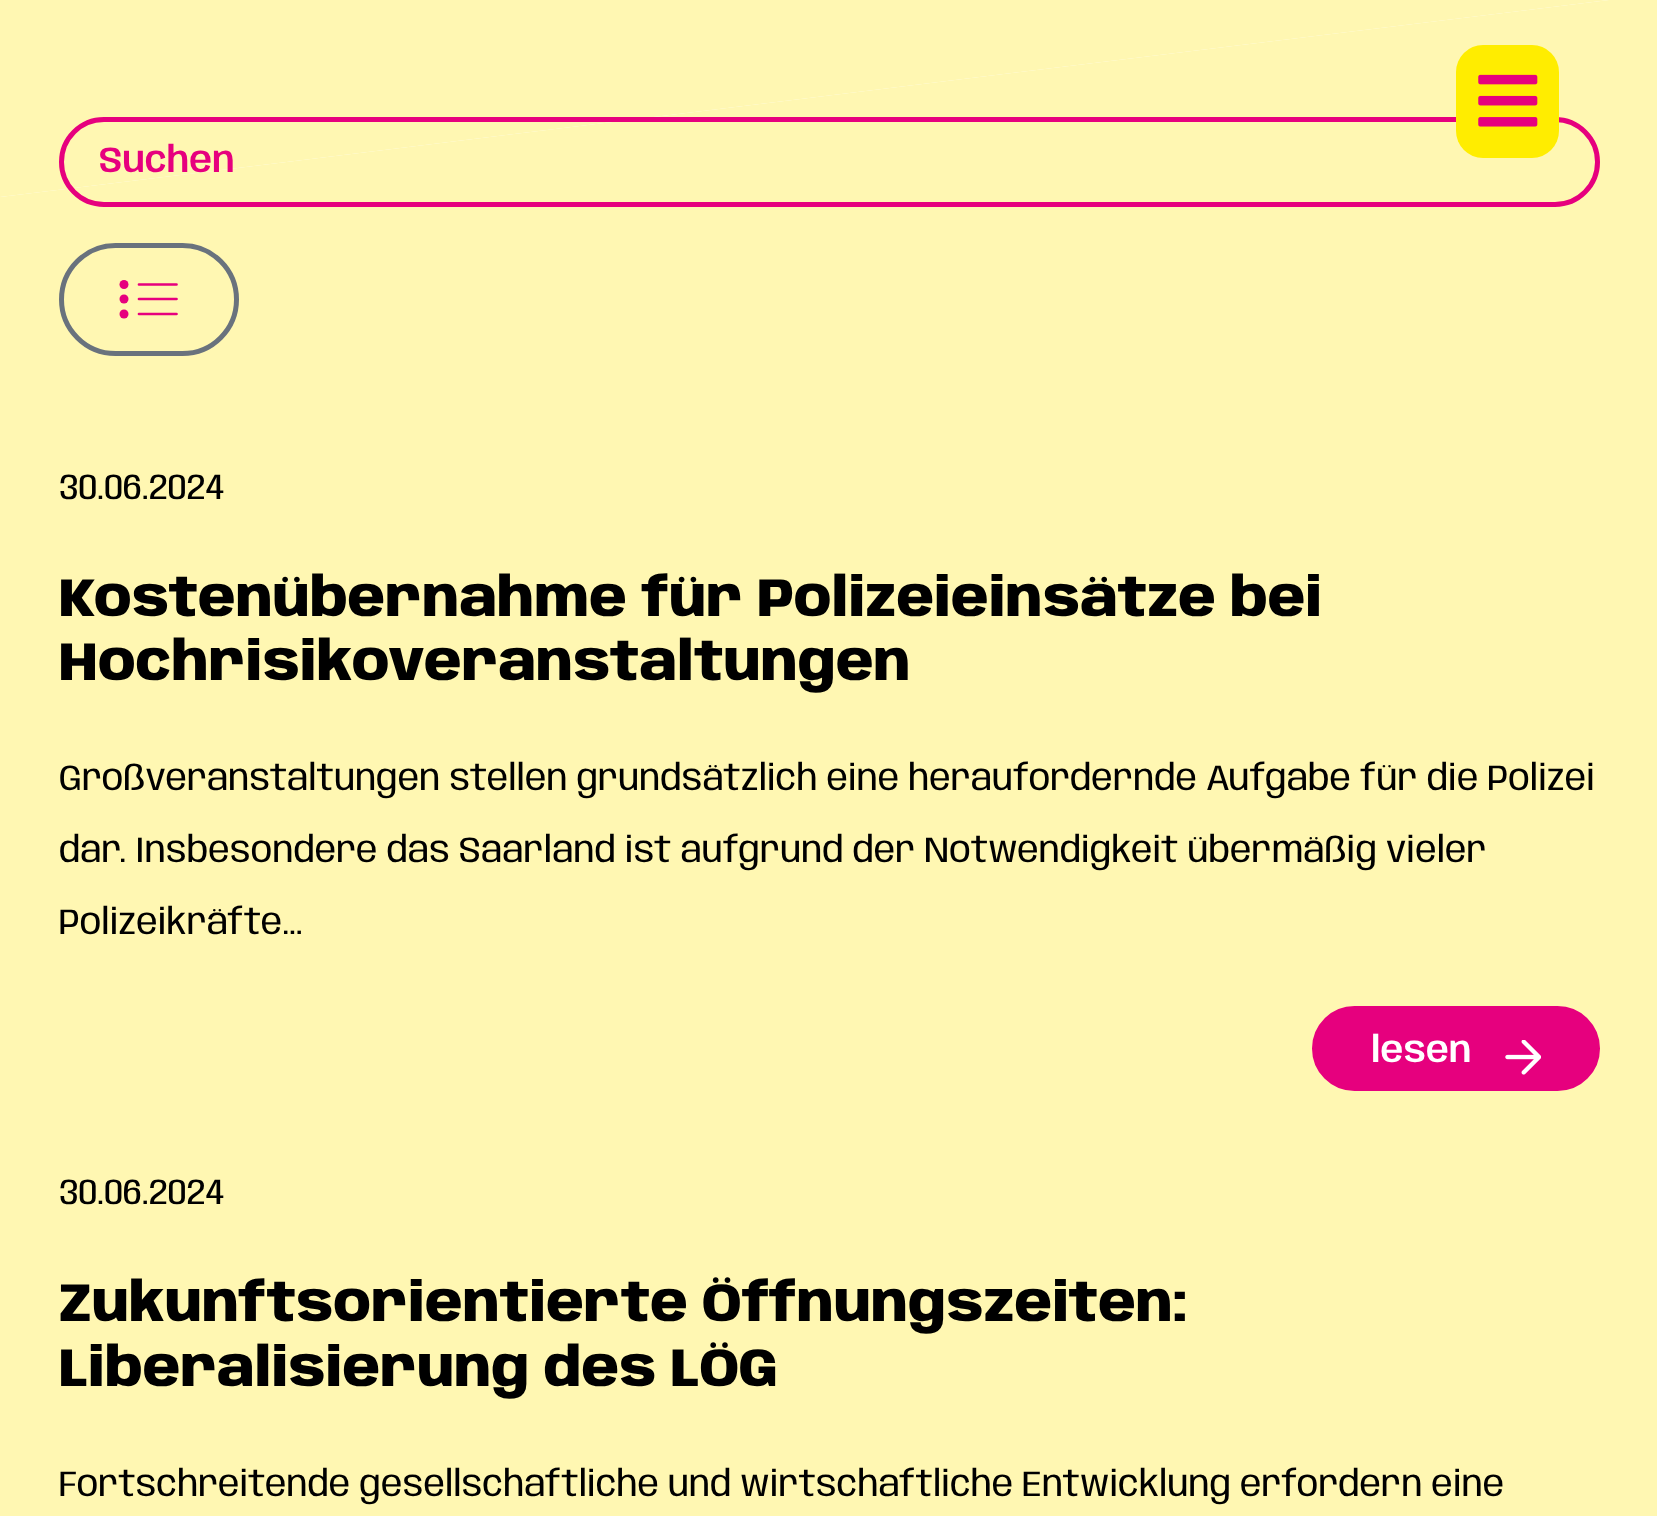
<?xml version="1.0" encoding="UTF-8"?>
<svg xmlns="http://www.w3.org/2000/svg" xmlns:xlink="http://www.w3.org/1999/xlink" width="1657" height="1516">
  <rect width="100%" height="100%" fill="#ffffff" />
  <path d="M 0 -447 l 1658 -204 v 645 l -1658 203 z" fill="#fff7b2" />
  <path d="M 0 197 l 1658 -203 v 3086 l -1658 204 z" fill="#fff7b2" />
  <rect x="61.5" y="119.5" width="1536" height="85" rx="42.5" fill="none" stroke="#e6007e" stroke-width="5" />
  <rect x="1456" y="45" width="103" height="113" rx="27" fill="#ffed00" />
  <image x="1478" y="74" width="60" height="53" xlink:href="image1.png" />
  <rect x="61.5" y="245.5" width="175" height="108" rx="54" fill="none" stroke="#69727d" stroke-width="5" />
  <circle cx="124" cy="284.5" r="4.5" fill="#e6007e" />
  <circle cx="124" cy="299" r="4.5" fill="#e6007e" />
  <circle cx="124" cy="314" r="4.5" fill="#e6007e" />
  <path d="M 139 284.5 h 37.5 m -37.5 14.5 h 37.5 m -37.5 15 h 37.5" fill="none" stroke="#e6007e" stroke-width="2.7" stroke-linecap="round" />
  <rect x="1314.5" y="1008.5" width="283" height="80" rx="40" fill="#e6007e" stroke="#e6007e" stroke-width="5" />
  <image x="1505" y="1040" width="36" height="35" xlink:href="image2.png" />
  <text x="99" y="172" style="font-family: Anybody; font-size: 36px; font-weight: 600; fill: #e6007e">Suchen</text>
  <text x="59" y="499" style="font-family: Anybody; font-size: 36px; fill: #000000">30.06.2024</text>
  <text x="59" y="616" style="font-family: Anybody; font-size: 54px; font-weight: 800; fill: #000000">Kostenübernahme für Polizeieinsätze bei</text>
  <text x="59" y="680" style="font-family: Anybody; font-size: 54px; font-weight: 800; fill: #000000">Hochrisikoveranstaltungen</text>
  <text x="59" y="790" style="font-family: Anybody; font-size: 36px; fill: #000000">Großveranstaltungen stellen grundsätzlich eine heraufordernde Aufgabe für die Polizei</text>
  <text x="59" y="862" style="font-family: Anybody; font-size: 36px; fill: #000000">dar. Insbesondere das Saarland ist aufgrund der Notwendigkeit übermäßig vieler</text>
  <text x="59" y="934" style="font-family: Anybody; font-size: 36px; fill: #000000">Polizeikräfte...</text>
  <text x="1371" y="1062" style="font-family: Anybody; font-size: 36px; font-weight: 600; fill: #ffffff">lesen</text>
  <text x="59" y="1204" style="font-family: Anybody; font-size: 36px; fill: #000000">30.06.2024</text>
  <text x="59" y="1321" style="font-family: Anybody; font-size: 54px; font-weight: 800; fill: #000000">Zukunftsorientierte Öffnungszeiten:</text>
  <text x="59" y="1386" style="font-family: Anybody; font-size: 54px; font-weight: 800; fill: #000000">Liberalisierung des LÖG</text>
  <text x="59" y="1496" style="font-family: Anybody; font-size: 36px; fill: #000000">Fortschreitende gesellschaftliche und wirtschaftliche Entwicklung erfordern eine</text>
</svg>
